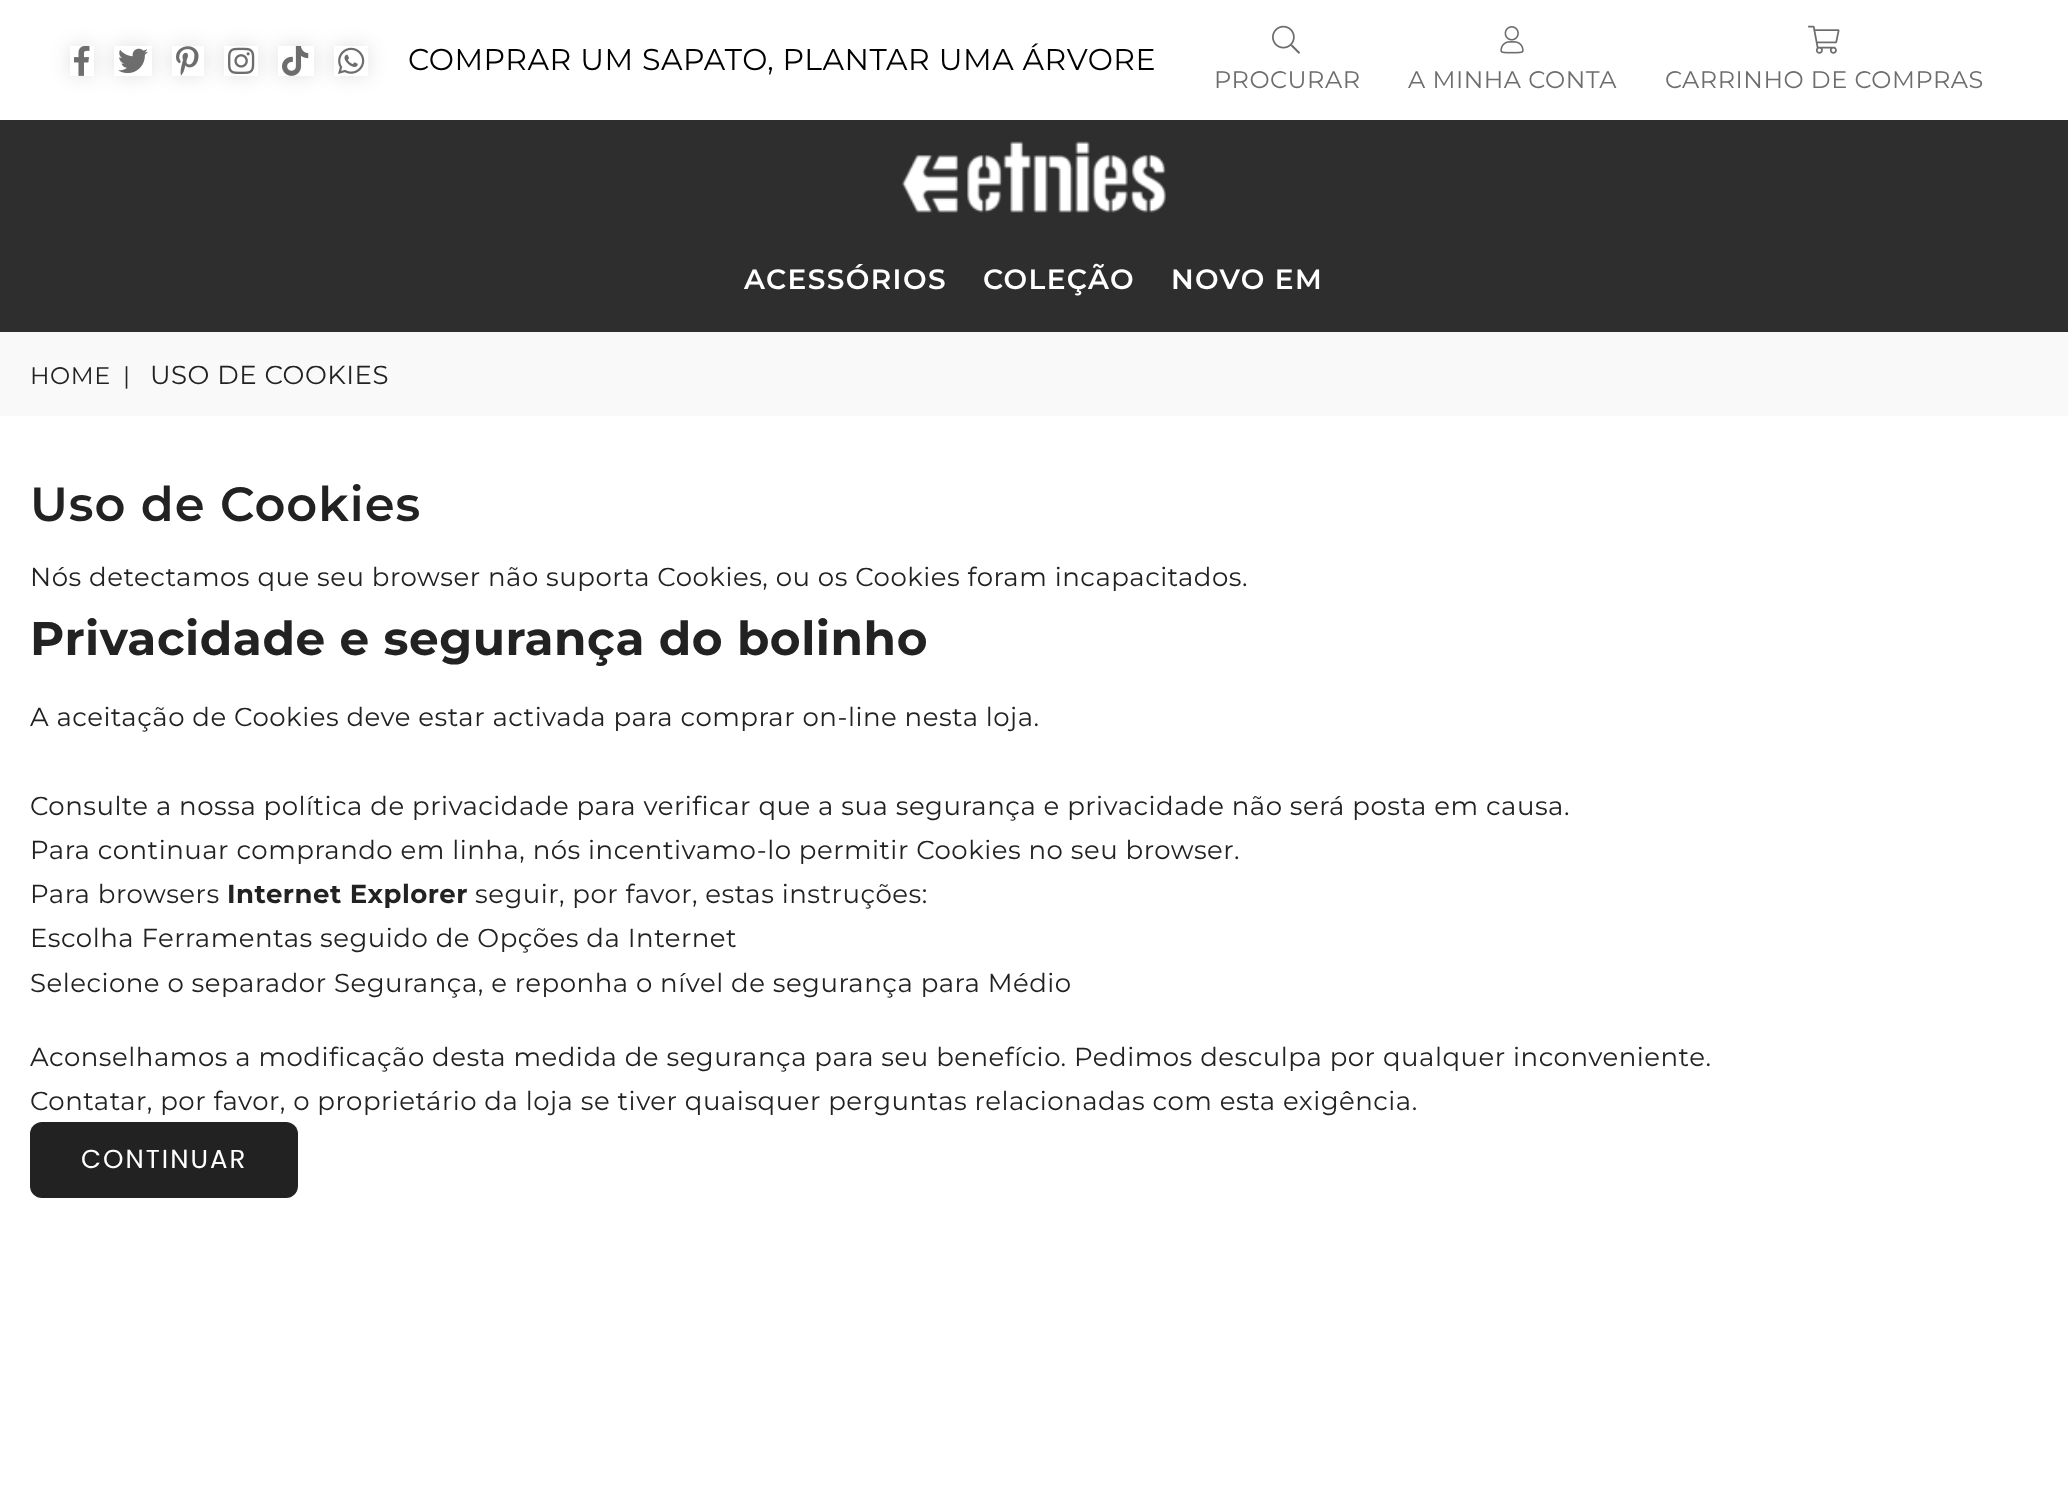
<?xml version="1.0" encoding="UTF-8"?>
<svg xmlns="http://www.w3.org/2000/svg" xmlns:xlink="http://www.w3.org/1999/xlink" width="2068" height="1488">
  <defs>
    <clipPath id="clip1"><path d="M 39 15 h 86 v 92 h -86 z m 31 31 h 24 v 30 h -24 z" clip-rule="evenodd" /></clipPath>
    <clipPath id="clip2"><path d="M 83 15 h 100 v 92 h -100 z m 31 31 h 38 v 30 h -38 z" clip-rule="evenodd" /></clipPath>
    <clipPath id="clip3"><path d="M 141 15 h 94 v 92 h -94 z m 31 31 h 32 v 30 h -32 z" clip-rule="evenodd" /></clipPath>
    <clipPath id="clip4"><path d="M 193 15 h 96 v 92 h -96 z m 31 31 h 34 v 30 h -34 z" clip-rule="evenodd" /></clipPath>
    <clipPath id="clip5"><path d="M 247 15 h 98 v 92 h -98 z m 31 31 h 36 v 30 h -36 z" clip-rule="evenodd" /></clipPath>
    <clipPath id="clip6"><path d="M 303 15 h 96 v 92 h -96 z m 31 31 h 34 v 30 h -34 z" clip-rule="evenodd" /></clipPath>
  </defs>
  <rect width="100%" height="100%" fill="#ffffff" />
  <rect y="120" width="2068" height="212" fill="#2e2e2e" />
  <g clip-path="url(#clip1)">
    <rect x="70" y="46" width="24" height="30" fill="#000000" fill-opacity="0.12" filter="blur(10px)" />
  </g>
  <image x="74" y="46" width="16" height="30" xlink:href="image1.png" />
  <g clip-path="url(#clip2)">
    <rect x="114" y="46" width="38" height="30" fill="#000000" fill-opacity="0.12" filter="blur(10px)" />
  </g>
  <image x="118" y="48" width="30" height="26" xlink:href="image2.png" />
  <g clip-path="url(#clip3)">
    <rect x="172" y="46" width="32" height="30" fill="#000000" fill-opacity="0.12" filter="blur(10px)" />
  </g>
  <image x="176" y="46" width="23" height="30" xlink:href="image3.png" />
  <g clip-path="url(#clip4)">
    <rect x="224" y="46" width="34" height="30" fill="#000000" fill-opacity="0.12" filter="blur(10px)" />
  </g>
  <image x="228" y="47" width="27" height="27" xlink:href="image4.png" />
  <g clip-path="url(#clip5)">
    <rect x="278" y="46" width="36" height="30" fill="#000000" fill-opacity="0.12" filter="blur(10px)" />
  </g>
  <image x="282" y="46" width="27" height="30" xlink:href="image5.png" />
  <g clip-path="url(#clip6)">
    <rect x="334" y="46" width="34" height="30" fill="#000000" fill-opacity="0.12" filter="blur(10px)" />
  </g>
  <image x="338" y="47" width="27" height="27" xlink:href="image6.png" />
  <image x="1272" y="25" width="28" height="29" xlink:href="image7.png" />
  <image x="1500" y="26" width="24" height="28" xlink:href="image8.png" />
  <image x="1808" y="25" width="32" height="29" xlink:href="image9.png" />
  <image x="902" y="141" width="264" height="72" xlink:href="image10.png" />
  <rect y="332" width="2068" height="84" fill="#f9f9f9" />
  <rect x="30" y="1122" width="268" height="76" rx="12" fill="#222222" />
  <text x="408" y="70" style="font-family: Montserrat; font-size: 30px; letter-spacing: 0.52px; fill: #000000">COMPRAR UM SAPATO, PLANTAR UMA ÁRVORE</text>
  <text x="1214" y="88" style="font-family: Montserrat; font-size: 24px; letter-spacing: 0.52px; fill: #6d6d6d">PROCURAR</text>
  <text x="1408" y="88" style="font-family: Montserrat; font-size: 24px; letter-spacing: 0.52px; fill: #6d6d6d">A MINHA CONTA</text>
  <text x="1665" y="88" style="font-family: Montserrat; font-size: 24px; letter-spacing: 0.52px; fill: #6d6d6d">CARRINHO DE COMPRAS</text>
  <text x="744" y="289" style="font-family: Montserrat; font-size: 28px; font-weight: 600; letter-spacing: 1.4px; fill: #ffffff">ACESSÓRIOS</text>
  <text x="983" y="289" style="font-family: Montserrat; font-size: 28px; font-weight: 600; letter-spacing: 1.4px; fill: #ffffff">COLEÇÃO</text>
  <text x="1171" y="289" style="font-family: Montserrat; font-size: 28px; font-weight: 600; letter-spacing: 1.4px; fill: #ffffff">NOVO EM</text>
  <text x="30" y="384" style="font-family: Montserrat; font-size: 24px; letter-spacing: 0.52px; fill: #222222">HOME</text>
  <text x="123" y="384" style="font-family: Montserrat; font-size: 24px; letter-spacing: 0.52px; fill: #222222">|</text>
  <text x="150" y="384" style="font-family: Montserrat; font-size: 26px; letter-spacing: 0.52px; fill: #222222">USO DE COOKIES</text>
  <text x="30" y="521" style="font-family: Montserrat; font-size: 48px; font-weight: 600; letter-spacing: 1px; fill: #222222">Uso de Cookies</text>
  <text x="30" y="586" style="font-family: Montserrat; font-size: 26px; letter-spacing: 0.52px; fill: #222222">Nós detectamos que seu browser não suporta Cookies, ou os Cookies foram incapacitados.</text>
  <text x="30" y="655" style="font-family: Montserrat; font-size: 47px; font-weight: bold; letter-spacing: 0.52px; fill: #222222">Privacidade e segurança do bolinho</text>
  <text x="30" y="726" style="font-family: Montserrat; font-size: 26px; letter-spacing: 0.52px; fill: #222222">A aceitação de Cookies deve estar activada para comprar on-line nesta loja.</text>
  <text x="30" y="815" style="font-family: Montserrat; font-size: 26px; letter-spacing: 0.52px; fill: #222222">Consulte a nossa política de privacidade para verificar que a sua segurança e privacidade não será posta em causa.</text>
  <text x="30" y="859" style="font-family: Montserrat; font-size: 26px; letter-spacing: 0.52px; fill: #222222">Para continuar comprando em linha, nós incentivamo-lo permitir Cookies no seu browser.</text>
  <text x="30" y="903" style="font-family: Montserrat; font-size: 26px; letter-spacing: 0.52px; fill: #222222">Para browsers</text>
  <text x="227" y="903" style="font-family: Montserrat; font-size: 26px; font-weight: bold; letter-spacing: 0.52px; fill: #222222">Internet Explorer</text>
  <text x="475" y="903" style="font-family: Montserrat; font-size: 26px; letter-spacing: 0.52px; fill: #222222">seguir, por favor, estas instruções:</text>
  <text x="30" y="947" style="font-family: Montserrat; font-size: 26px; letter-spacing: 0.52px; fill: #222222">Escolha Ferramentas seguido de Opções da Internet</text>
  <text x="30" y="992" style="font-family: Montserrat; font-size: 26px; letter-spacing: 0.52px; fill: #222222">Selecione o separador Segurança, e reponha o nível de segurança para Médio</text>
  <text x="30" y="1066" style="font-family: Montserrat; font-size: 26px; letter-spacing: 0.52px; fill: #222222">Aconselhamos a modificação desta medida de segurança para seu benefício. Pedimos desculpa por qualquer inconveniente.</text>
  <text x="30" y="1110" style="font-family: Montserrat; font-size: 26px; letter-spacing: 0.52px; fill: #222222">Contatar, por favor, o proprietário da loja se tiver quaisquer perguntas relacionadas com esta exigência.</text>
  <text x="81" y="1168" style="font-family: Poppins; font-size: 26px; letter-spacing: 2px; fill: #ffffff">CONTINUAR</text>
</svg>
